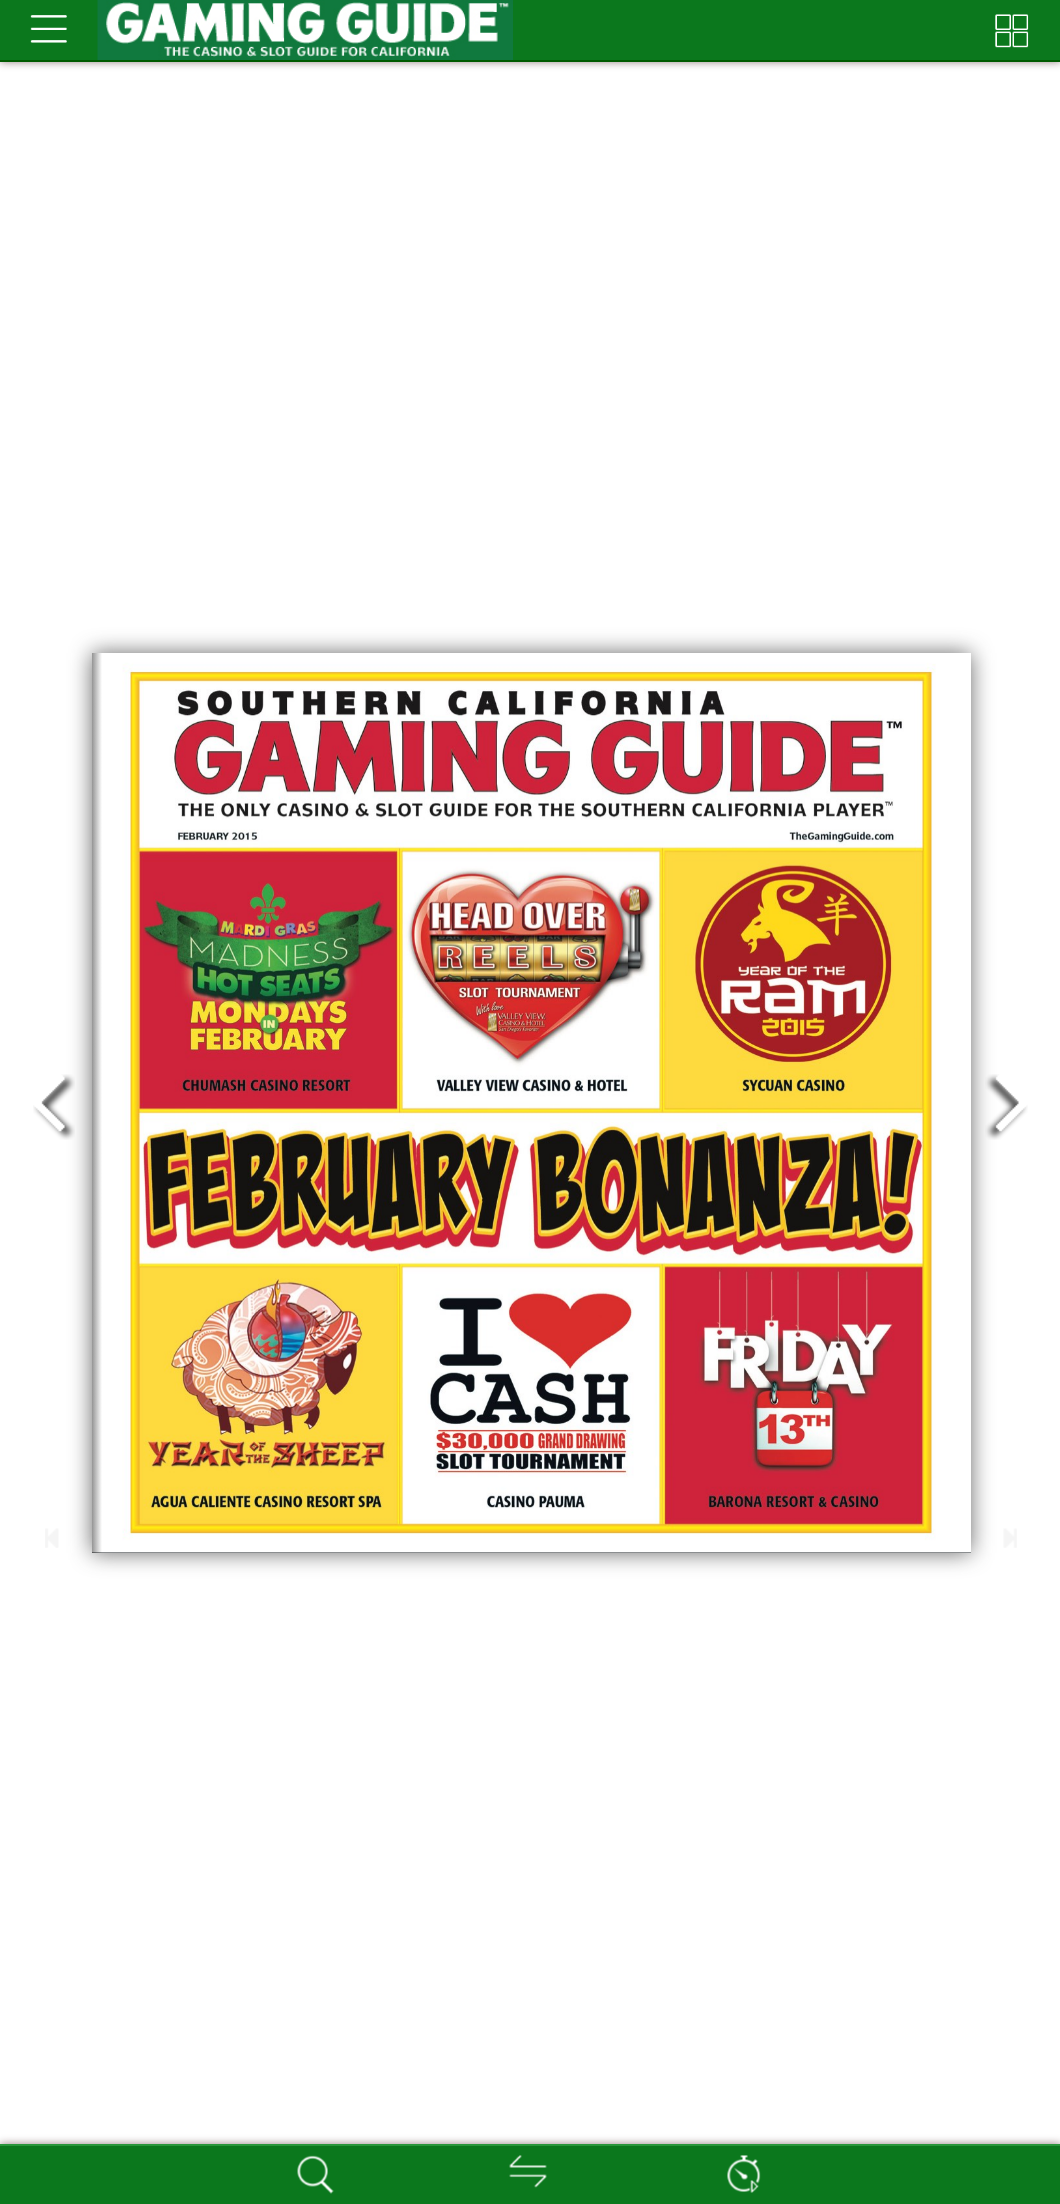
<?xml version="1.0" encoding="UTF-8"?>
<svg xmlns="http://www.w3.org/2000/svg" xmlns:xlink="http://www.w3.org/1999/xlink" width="1060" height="2204">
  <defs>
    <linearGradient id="g1" gradientUnits="userSpaceOnUse" x1="91" y1="1103" x2="102" y2="1103"><stop offset="0" stop-color="#141414" stop-opacity="0.5" /><stop offset="1" stop-color="#141414" stop-opacity="0" /></linearGradient>
  </defs>
  <rect width="100%" height="100%" fill="#ffffff" />
  <rect width="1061" height="62" fill="#280000" fill-opacity="0.5" filter="blur(4px)" />
  <rect width="1060" height="60" fill="#0b781d" />
  <rect y="60" width="1060" height="2" fill="#005a00" />
  <image x="30" y="15" width="37" height="28" xlink:href="image1.png" />
  <image x="97" y="0" width="416" height="60" xlink:href="image2.png" />
  <image x="995" y="14" width="34" height="34" xlink:href="image3.png" />
  <rect x="92" y="653" width="879" height="900" fill="#282828" fill-opacity="0.7" filter="blur(11px)" />
  <image x="33" y="1074" width="42" height="66" xlink:href="image4.png" />
  <rect x="92" y="1552" width="879" height="1" fill="#30373a" />
  <image x="92" y="653" width="879" height="900" xlink:href="image5.png" />
  <rect x="92" y="653" width="10" height="900" fill="url(#g1)" />
  <image x="985" y="1074" width="43" height="66" xlink:href="image6.png" />
  <image x="45" y="1528" width="14" height="20" xlink:href="image7.png" />
  <image x="1003" y="1528" width="14" height="20" xlink:href="image8.png" />
  <rect y="2144" width="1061" height="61" fill="#280000" fill-opacity="0.5" filter="blur(4px)" />
  <rect y="2146" width="1060" height="58" fill="#0b781d" />
  <rect y="2144" width="1060" height="2" fill="#29963b" />
  <image x="297" y="2155" width="37" height="39" xlink:href="image9.png" />
  <image x="509" y="2155" width="38" height="33" xlink:href="image10.png" />
  <image x="727" y="2155" width="34" height="38" xlink:href="image11.png" />
</svg>
